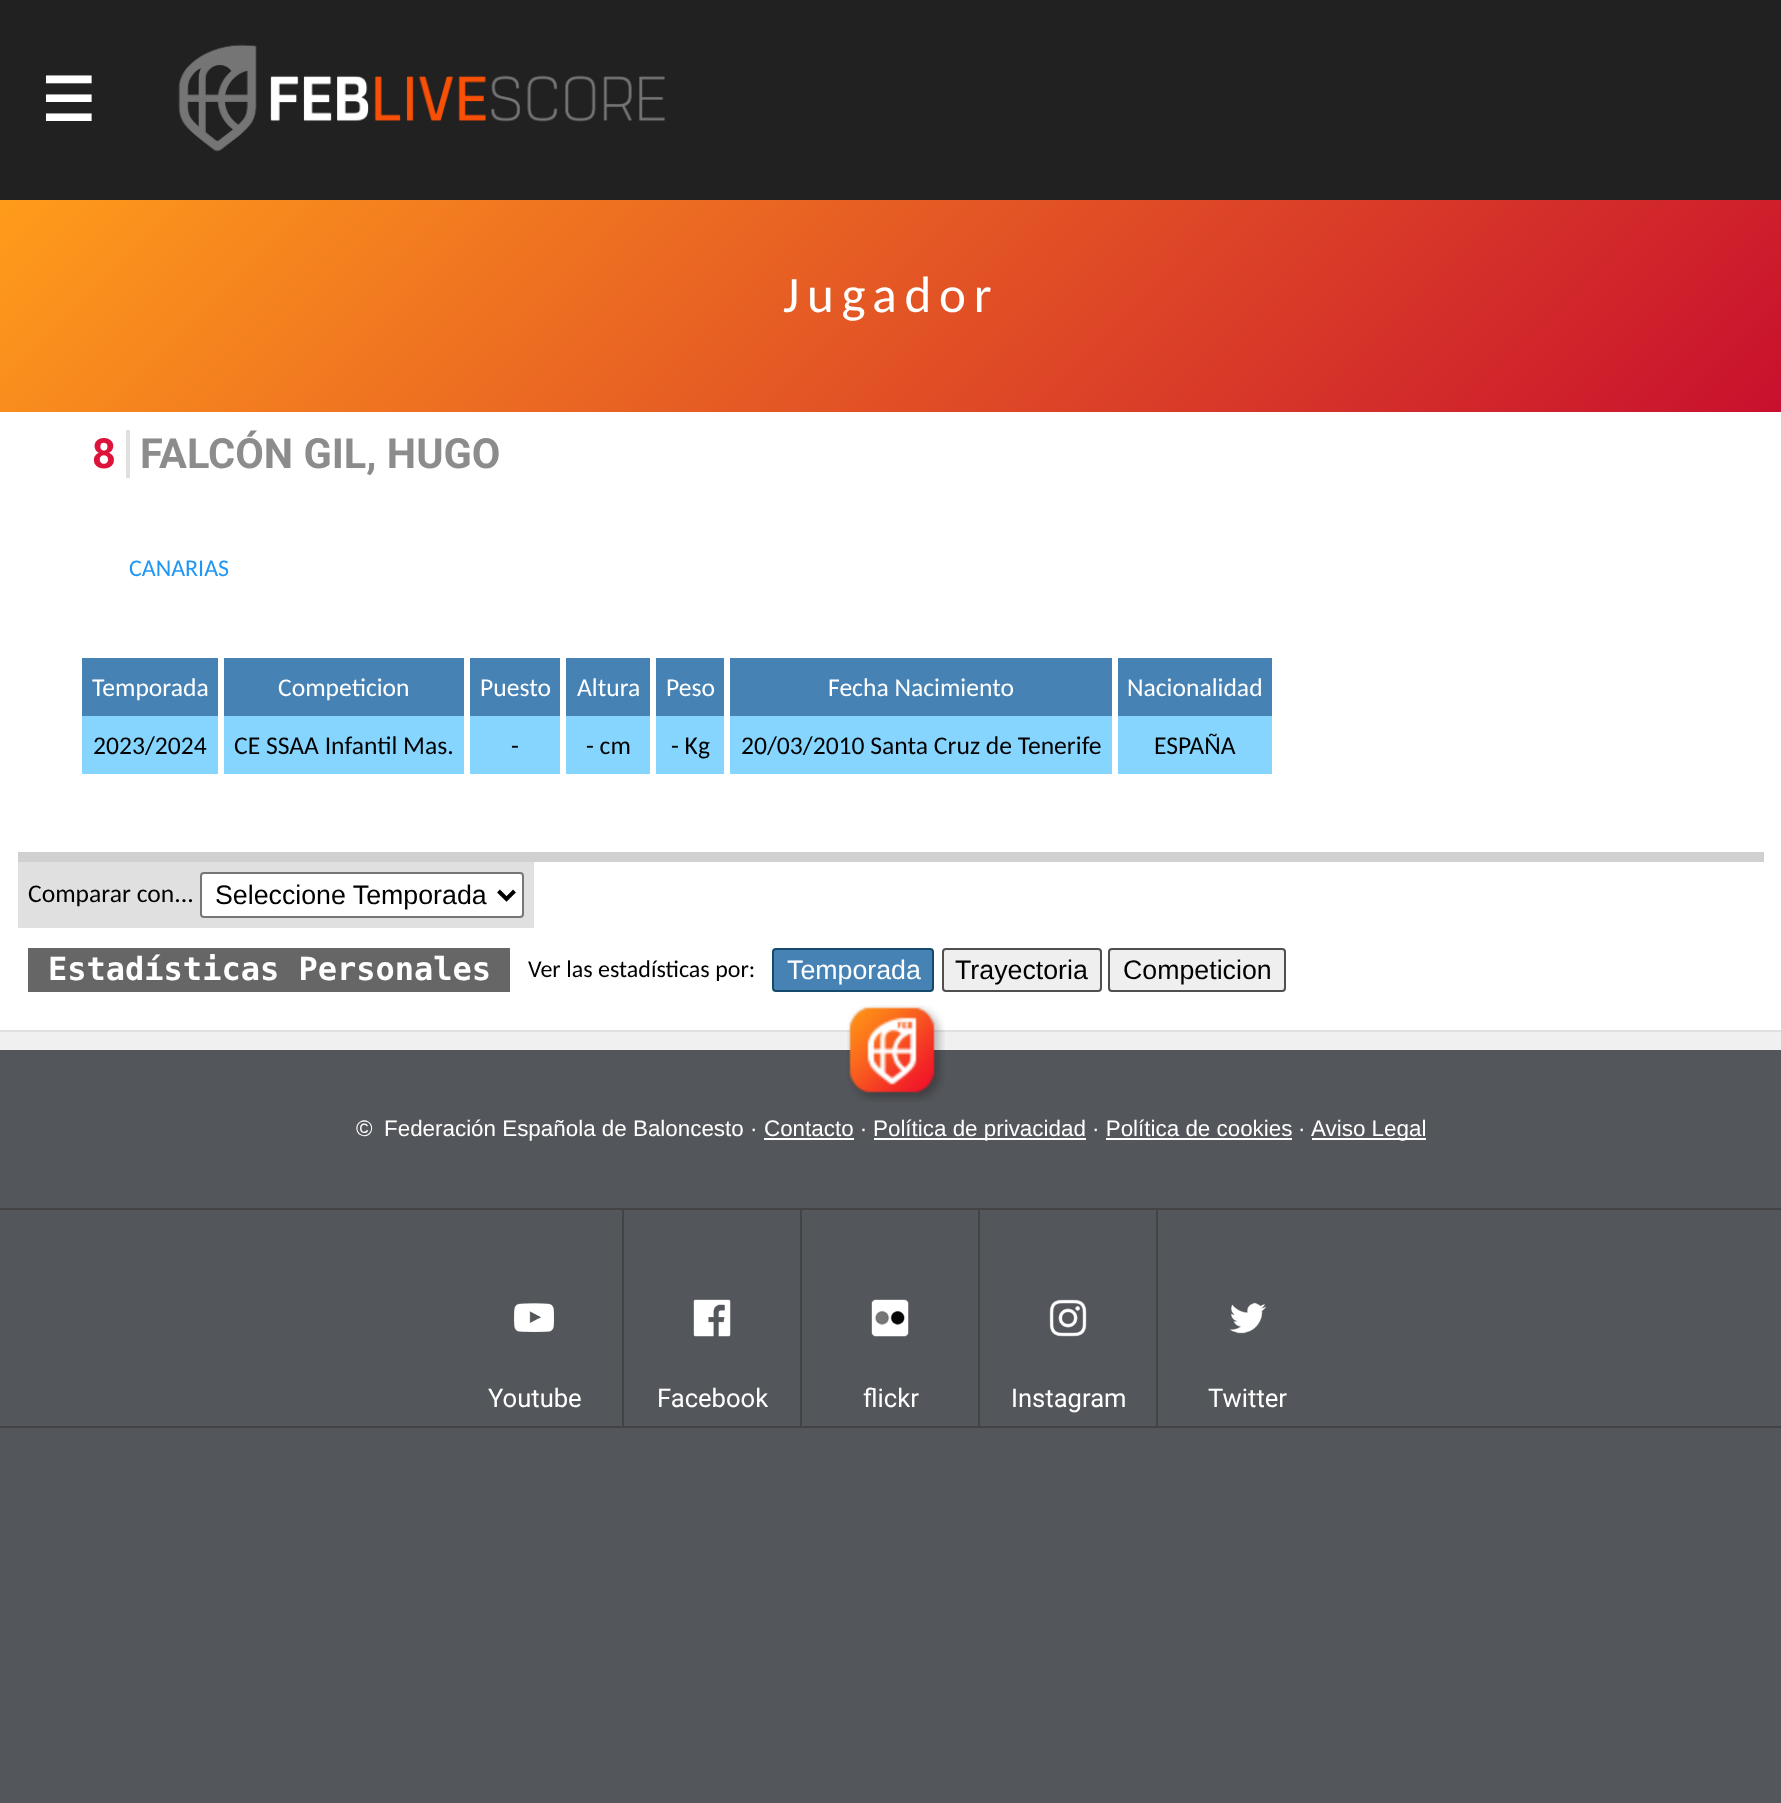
<?xml version="1.0" encoding="UTF-8"?>
<svg xmlns="http://www.w3.org/2000/svg" xmlns:xlink="http://www.w3.org/1999/xlink" width="1781" height="1803">
  <defs>
    <linearGradient id="g1" gradientUnits="userSpaceOnUse" x1="392" y1="-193" x2="1390" y2="805"><stop offset="0" stop-color="#ff9c1b" /><stop offset="1" stop-color="#c8102e" /></linearGradient>
  </defs>
  <rect width="100%" height="100%" fill="#53565a" />
  <rect width="1781" height="200" fill="#212121" />
  <image x="178" y="44" width="487" height="108" xlink:href="image1.png" />
  <rect y="412" width="1781" height="618" fill="#ffffff" />
  <rect y="200" width="1781" height="212" fill="url(#g1)" />
  <rect x="18" y="852" width="1746" height="10" fill="#d0d0d0" />
  <rect x="126" y="430" width="4" height="48" fill="#e0e0e0" />
  <rect x="82" y="658" width="136" height="58" fill="#4682b4" />
  <rect x="82" y="716" width="136" height="58" fill="#85d5ff" />
  <rect x="224" y="658" width="240" height="58" fill="#4682b4" />
  <rect x="224" y="716" width="240" height="58" fill="#85d5ff" />
  <rect x="470" y="658" width="90" height="58" fill="#4682b4" />
  <rect x="470" y="716" width="90" height="58" fill="#85d5ff" />
  <rect x="566" y="658" width="84" height="58" fill="#4682b4" />
  <rect x="566" y="716" width="84" height="58" fill="#85d5ff" />
  <rect x="656" y="658" width="68" height="58" fill="#4682b4" />
  <rect x="656" y="716" width="68" height="58" fill="#85d5ff" />
  <rect x="730" y="658" width="382" height="58" fill="#4682b4" />
  <rect x="730" y="716" width="382" height="58" fill="#85d5ff" />
  <rect x="1118" y="658" width="154" height="58" fill="#4682b4" />
  <rect x="1118" y="716" width="154" height="58" fill="#85d5ff" />
  <rect x="18" y="862" width="516" height="66" fill="#e0e0e0" />
  <rect x="201" y="873" width="322" height="44" rx="3" fill="#ffffff" stroke="#767676" stroke-width="2" />
  <path d="M 498.5 891 l 8 8 l 8 -8" fill="none" stroke="#000000" stroke-width="4" />
  <rect x="28" y="948" width="482" height="44" fill="#666666" />
  <rect x="773" y="949" width="160" height="42" rx="3" fill="#4682b4" stroke="#144a6b" stroke-width="2" />
  <rect x="943" y="949" width="158" height="42" rx="3" fill="#efefef" stroke="#4f4f4f" stroke-width="2" />
  <rect x="1109" y="949" width="176" height="42" rx="3" fill="#efefef" stroke="#4f4f4f" stroke-width="2" />
  <rect y="1032" width="1781" height="18" fill="#f0f0f0" />
  <rect y="1030" width="1781" height="2" fill="#e0e0e0" />
  <image x="847" y="1005" width="98" height="97" xlink:href="image2.png" />
  <rect x="764" y="1138" width="90" height="2" fill="#ffffff" />
  <rect x="874" y="1138" width="212" height="2" fill="#ffffff" />
  <rect x="1312" y="1138" width="114" height="2" fill="#ffffff" />
  <rect x="1106" y="1138" width="186" height="2" fill="#ffffff" />
  <rect y="1208" width="1781" height="2" fill="#444444" />
  <rect y="1426" width="1781" height="2" fill="#444444" />
  <image x="514" y="1303" width="40" height="29" xlink:href="image3.png" />
  <image x="693" y="1299" width="38" height="38" xlink:href="image4.png" />
  <rect x="622" y="1210" width="2" height="216" fill="#444444" />
  <image x="871" y="1299" width="38" height="38" xlink:href="image5.png" />
  <rect x="800" y="1210" width="2" height="216" fill="#444444" />
  <image x="1049" y="1299" width="38" height="38" xlink:href="image6.png" />
  <rect x="978" y="1210" width="2" height="216" fill="#444444" />
  <image x="1229" y="1302" width="38" height="32" xlink:href="image7.png" />
  <rect x="1156" y="1210" width="2" height="216" fill="#444444" />
  <text x="41" y="121" style="font-family: DejaVu Sans; font-size: 60px; font-weight: bold; fill: #ffffff">☰</text>
  <text x="783" y="312" style="font-family: Carlito; font-size: 51px; letter-spacing: 7.75px; fill: #ffffff">Jugador</text>
  <text x="92" y="468" style="font-family: Roboto; font-size: 41.5px; font-weight: bold; fill: #dc143c">8</text>
  <text x="140" y="468" style="font-family: Roboto; font-size: 41.5px; font-weight: bold; fill: #8c8c8c">FALCÓN GIL, HUGO</text>
  <text x="129" y="576" style="font-family: Carlito; font-size: 24px; fill: #2196f3">CANARIAS</text>
  <text x="92" y="696" style="font-family: Carlito; font-size: 25.6px; fill: #ffffff">Temporada</text>
  <text x="93" y="754" style="font-family: Carlito; font-size: 25.6px; fill: #000000">2023/2024</text>
  <text x="278" y="696" style="font-family: Carlito; font-size: 25.6px; fill: #ffffff">Competicion</text>
  <text x="234" y="754" style="font-family: Carlito; font-size: 25.6px; fill: #000000">CE SSAA Infantil Mas.</text>
  <text x="480" y="696" style="font-family: Carlito; font-size: 25.6px; fill: #ffffff">Puesto</text>
  <text x="511" y="754" style="font-family: Carlito; font-size: 25.6px; fill: #000000">-</text>
  <text x="577" y="696" style="font-family: Carlito; font-size: 25.6px; fill: #ffffff">Altura</text>
  <text x="586" y="754" style="font-family: Carlito; font-size: 25.6px; fill: #000000">- cm</text>
  <text x="666" y="696" style="font-family: Carlito; font-size: 25.6px; fill: #ffffff">Peso</text>
  <text x="671" y="754" style="font-family: Carlito; font-size: 25.6px; fill: #000000">- Kg</text>
  <text x="828" y="696" style="font-family: Carlito; font-size: 25.6px; fill: #ffffff">Fecha Nacimiento</text>
  <text x="741" y="754" style="font-family: Carlito; font-size: 25.6px; fill: #000000">20/03/2010 Santa Cruz de Tenerife</text>
  <text x="1127" y="696" style="font-family: Carlito; font-size: 25.6px; fill: #ffffff">Nacionalidad</text>
  <text x="1154" y="754" style="font-family: Carlito; font-size: 25.6px; fill: #000000">ESPAÑA</text>
  <text x="28" y="902" style="font-family: Carlito; font-size: 25.6px; fill: #000000">Comparar con...</text>
  <text x="215" y="904" style="font-family: Liberation Sans; font-size: 26.75px; fill: #000000">Seleccione Temporada</text>
  <text x="48" y="980" style="font-family: DejaVu Sans Mono; font-size: 32px; font-weight: bold; fill: #ffffff">Estadísticas Personales</text>
  <text x="528" y="977" style="font-family: Carlito; font-size: 24px; fill: #000000">Ver las estadísticas por:</text>
  <text x="787" y="979" style="font-family: Liberation Sans; font-size: 26.75px; fill: #ffffff">Temporada</text>
  <text x="955" y="979" style="font-family: Liberation Sans; font-size: 26.75px; fill: #000000">Trayectoria</text>
  <text x="1123" y="979" style="font-family: Liberation Sans; font-size: 26.75px; fill: #000000">Competicion</text>
  <text x="356" y="1136" style="font-family: Liberation Sans; font-size: 22.4px; fill: #ffffff">©</text>
  <text x="384" y="1136" style="font-family: Liberation Sans; font-size: 22.4px; fill: #ffffff">Federación Española de Baloncesto ·</text>
  <text x="764" y="1136" style="font-family: Liberation Sans; font-size: 22.4px; fill: #ffffff">Contacto ·</text>
  <text x="873" y="1136" style="font-family: Liberation Sans; font-size: 22.4px; fill: #ffffff">Política de privacidad · Política de cookies</text>
  <text x="1298" y="1136" style="font-family: Liberation Sans; font-size: 22.4px; fill: #ffffff">·</text>
  <text x="1311" y="1136" style="font-family: Liberation Sans; font-size: 22.4px; fill: #ffffff">Aviso Legal</text>
  <text x="488" y="1407" style="font-family: Roboto; font-size: 25.6px; fill: #ffffff">Youtube</text>
  <text x="657" y="1407" style="font-family: Roboto; font-size: 25.6px; fill: #ffffff">Facebook</text>
  <text x="863" y="1407" style="font-family: Roboto; font-size: 25.6px; fill: #ffffff">flickr</text>
  <text x="1011" y="1407" style="font-family: Roboto; font-size: 25.6px; fill: #ffffff">Instagram</text>
  <text x="1208" y="1407" style="font-family: Roboto; font-size: 25.6px; fill: #ffffff">Twitter</text>
</svg>
